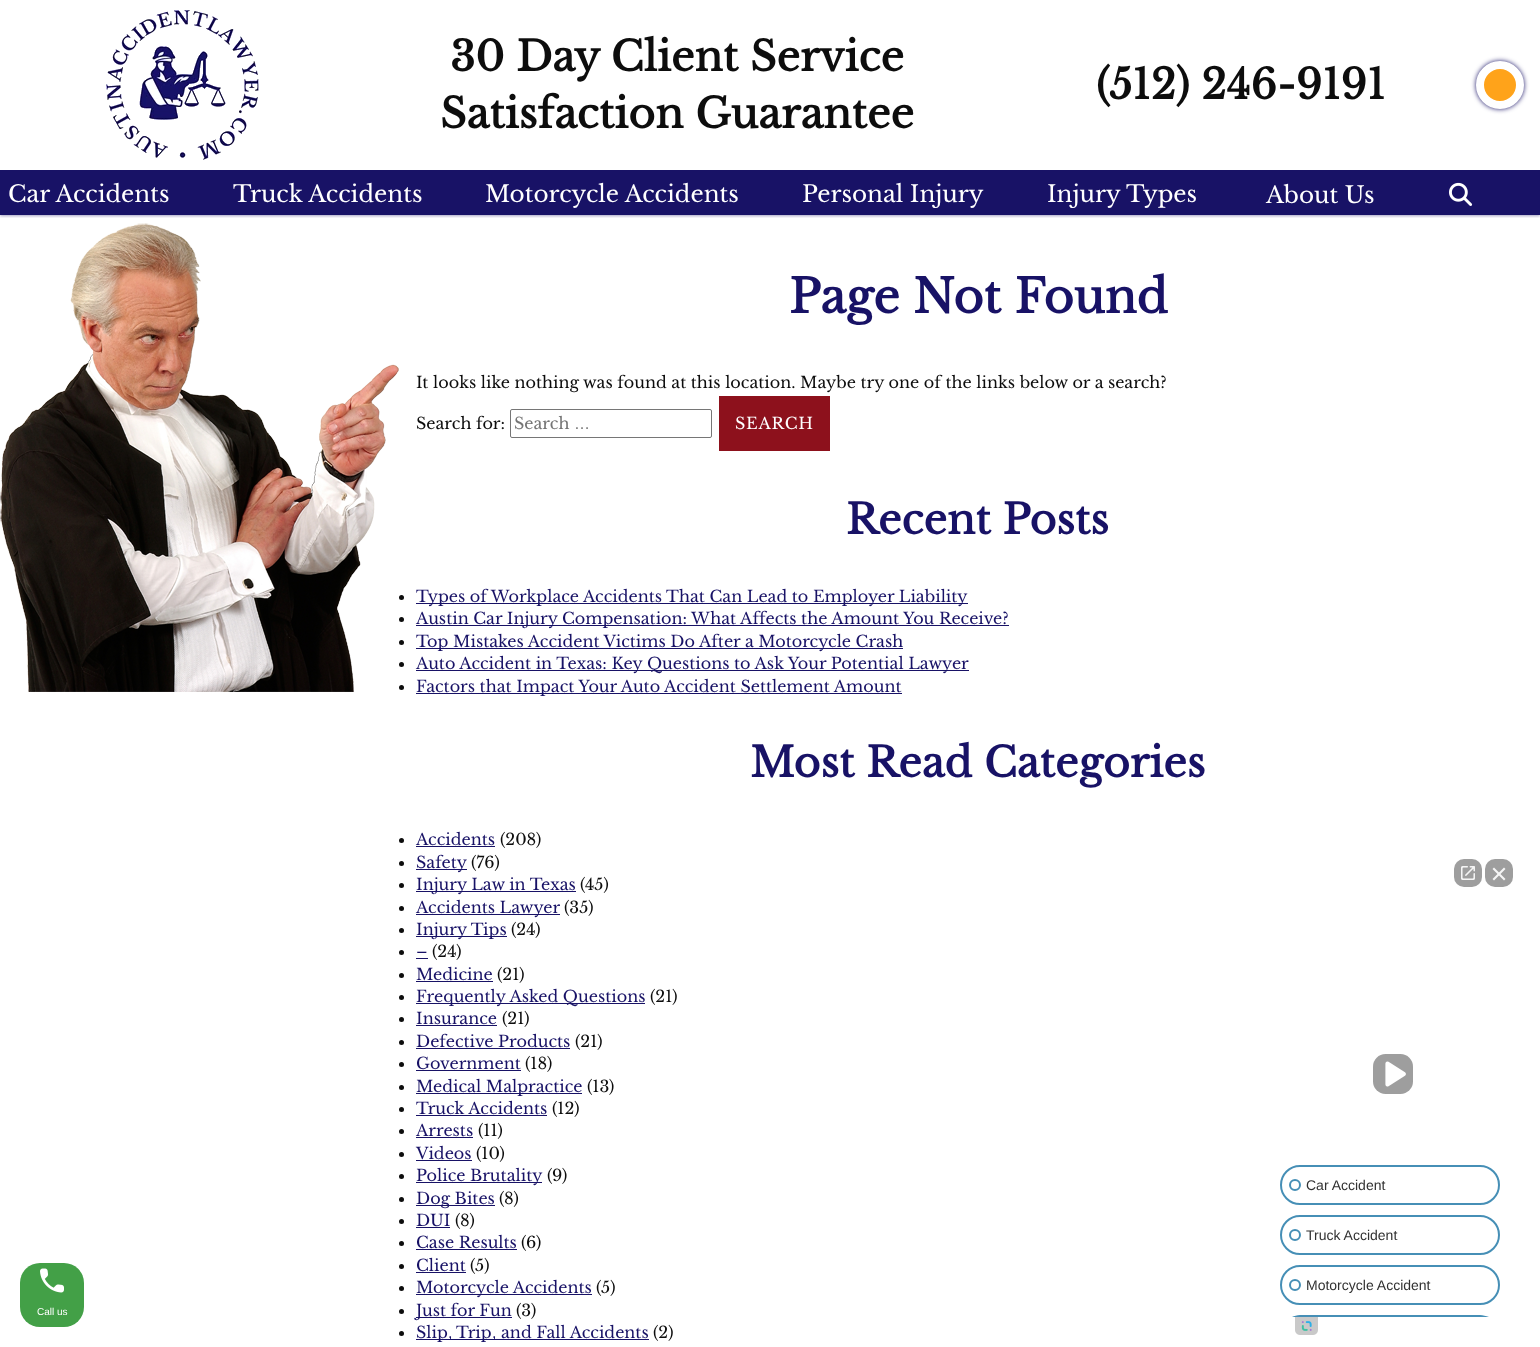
<?xml version="1.0" encoding="UTF-8"?>
<svg xmlns="http://www.w3.org/2000/svg" xmlns:xlink="http://www.w3.org/1999/xlink" width="1540" height="1347">
  <defs>
    <clipPath id="clip1"><rect x="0" y="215" width="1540" height="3" /></clipPath>
  </defs>
  <rect width="100%" height="100%" fill="#ffffff" />
  <g clip-path="url(#clip1)">
    <rect y="1" width="1540" height="215" fill="#181266" fill-opacity="0.4" filter="blur(1.5px)" />
  </g>
  <image x="106" y="10" width="153" height="150" xlink:href="image1.png" />
  <rect x="1476" y="61" width="48" height="48" rx="24" fill="#181266" filter="blur(2.5px)" />
  <circle cx="1500" cy="85" r="20" fill="#ffa31a" stroke="#ffffff" stroke-width="8" />
  <rect y="170" width="1540" height="45" fill="#181266" />
  <image x="1449" y="182" width="24" height="24" xlink:href="image2.png" />
  <image x="0" y="223" width="399" height="469" xlink:href="image3.png" />
  <rect x="510.5" y="409.5" width="201" height="28" rx="1.5" fill="none" stroke="#767676" />
  <rect x="719" y="396" width="111" height="55" fill="#8d111c" />
  <circle cx="401.5" cy="597.5" r="2.5" fill="#0d0d0d" />
  <rect x="416" y="603" width="552" height="1" fill="#181266" />
  <circle cx="401.5" cy="619.5" r="2.5" fill="#0d0d0d" />
  <rect x="416" y="625" width="593" height="1" fill="#181266" />
  <circle cx="401.5" cy="642.5" r="2.5" fill="#0d0d0d" />
  <rect x="416" y="648" width="487" height="1" fill="#181266" />
  <circle cx="401.5" cy="664.5" r="2.5" fill="#0d0d0d" />
  <rect x="416" y="670" width="553" height="1" fill="#181266" />
  <circle cx="401.5" cy="687.5" r="2.5" fill="#0d0d0d" />
  <rect x="416" y="693" width="486" height="1" fill="#181266" />
  <circle cx="401.5" cy="840.5" r="2.5" fill="#0d0d0d" />
  <rect x="416" y="846" width="79" height="1" fill="#181266" />
  <circle cx="401.5" cy="863.5" r="2.5" fill="#0d0d0d" />
  <rect x="416" y="869" width="51" height="1" fill="#181266" />
  <circle cx="401.5" cy="885.5" r="2.5" fill="#0d0d0d" />
  <rect x="416" y="891" width="160" height="1" fill="#181266" />
  <circle cx="401.5" cy="908.5" r="2.5" fill="#0d0d0d" />
  <rect x="416" y="914" width="144" height="1" fill="#181266" />
  <circle cx="401.5" cy="930.5" r="2.5" fill="#0d0d0d" />
  <rect x="416" y="936" width="91" height="1" fill="#181266" />
  <circle cx="401.5" cy="952.5" r="2.5" fill="#0d0d0d" />
  <rect x="416" y="958" width="12" height="1" fill="#181266" />
  <circle cx="401.5" cy="975.5" r="2.5" fill="#0d0d0d" />
  <rect x="416" y="981" width="77" height="1" fill="#181266" />
  <circle cx="401.5" cy="997.5" r="2.5" fill="#0d0d0d" />
  <rect x="416" y="1003" width="229" height="1" fill="#181266" />
  <circle cx="401.5" cy="1019.5" r="2.5" fill="#0d0d0d" />
  <rect x="416" y="1025" width="81" height="1" fill="#181266" />
  <circle cx="401.5" cy="1042.5" r="2.5" fill="#0d0d0d" />
  <rect x="416" y="1048" width="154" height="1" fill="#181266" />
  <circle cx="401.5" cy="1064.5" r="2.5" fill="#0d0d0d" />
  <rect x="416" y="1070" width="105" height="1" fill="#181266" />
  <circle cx="401.5" cy="1087.5" r="2.5" fill="#0d0d0d" />
  <rect x="416" y="1093" width="166" height="1" fill="#181266" />
  <circle cx="401.5" cy="1109.5" r="2.5" fill="#0d0d0d" />
  <rect x="416" y="1115" width="131" height="1" fill="#181266" />
  <circle cx="401.5" cy="1131.5" r="2.5" fill="#0d0d0d" />
  <rect x="416" y="1137" width="57" height="1" fill="#181266" />
  <circle cx="401.5" cy="1154.5" r="2.5" fill="#0d0d0d" />
  <rect x="416" y="1160" width="56" height="1" fill="#181266" />
  <circle cx="401.5" cy="1176.5" r="2.5" fill="#0d0d0d" />
  <rect x="416" y="1182" width="126" height="1" fill="#181266" />
  <circle cx="401.5" cy="1199.5" r="2.5" fill="#0d0d0d" />
  <rect x="416" y="1205" width="79" height="1" fill="#181266" />
  <circle cx="401.5" cy="1221.5" r="2.5" fill="#0d0d0d" />
  <rect x="416" y="1227" width="34" height="1" fill="#181266" />
  <circle cx="401.5" cy="1243.5" r="2.5" fill="#0d0d0d" />
  <rect x="416" y="1249" width="101" height="1" fill="#181266" />
  <circle cx="401.5" cy="1266.5" r="2.5" fill="#0d0d0d" />
  <rect x="416" y="1272" width="50" height="1" fill="#181266" />
  <circle cx="401.5" cy="1288.5" r="2.5" fill="#0d0d0d" />
  <rect x="416" y="1294" width="176" height="1" fill="#181266" />
  <circle cx="401.5" cy="1311.5" r="2.5" fill="#0d0d0d" />
  <rect x="416" y="1317" width="96" height="1" fill="#181266" />
  <circle cx="401.5" cy="1333.5" r="2.5" fill="#0d0d0d" />
  <rect x="416" y="1339" width="233" height="1" fill="#181266" />
  <rect x="1454" y="859" width="28" height="28" rx="10" fill="#9e9e9e" />
  <image x="1461" y="866" width="14" height="14" xlink:href="image4.png" />
  <rect x="1485" y="859" width="28" height="28" rx="10" fill="#9e9e9e" />
  <path d="M 1492.5 869 l 1.5 -1.5 l 11.5 11.5 l -1.5 1.5 z" fill="#f5f5f5" />
  <path d="M 1504 867.5 l 1.5 1.5 l -11.5 11.5 l -1.5 -1.5 z" fill="#f5f5f5" />
  <image x="1373" y="1054" width="40" height="40" xlink:href="image5.png" />
  <rect x="1281" y="1166" width="218" height="38" rx="19" fill="none" stroke="#468fb6" stroke-width="2" />
  <circle cx="1295" cy="1185" r="5" fill="none" stroke="#468fb6" stroke-width="2" />
  <rect x="1281" y="1216" width="218" height="38" rx="19" fill="none" stroke="#468fb6" stroke-width="2" />
  <circle cx="1295" cy="1235" r="5" fill="none" stroke="#468fb6" stroke-width="2" />
  <rect x="1281" y="1266" width="218" height="38" rx="19" fill="none" stroke="#468fb6" stroke-width="2" />
  <circle cx="1295" cy="1285" r="5" fill="none" stroke="#468fb6" stroke-width="2" />
  <path d="M 1300 1315 c -3 0 -6 1 -8 2 h 197 c -3 -1 -6 -2 -9 -2 z" fill="#468fb6" />
  <image x="1295" y="1317" width="23" height="18" xlink:href="image6.png" />
  <rect x="20" y="1263" width="64" height="64" rx="20" fill="#43a047" />
  <image x="40" y="1268" width="24" height="25" xlink:href="image7.png" />
  <text x="450" y="71" style="font-family: Libre Baskerville; font-size: 41px; font-weight: bold; fill: #0d0d0d">30 Day Client Service</text>
  <text x="440" y="128" style="font-family: Libre Baskerville; font-size: 41px; font-weight: bold; fill: #0d0d0d">Satisfaction Guarantee</text>
  <text x="1096" y="99" style="font-family: Libre Baskerville; font-size: 41px; font-weight: bold; fill: #0d0d0d">(512) 246-9191</text>
  <text x="8" y="202" style="font-family: Libre Baskerville; font-size: 23.1px; fill: #ffffff">Car Accidents</text>
  <text x="233" y="202" style="font-family: Libre Baskerville; font-size: 23.1px; fill: #ffffff">Truck Accidents</text>
  <text x="485" y="202" style="font-family: Libre Baskerville; font-size: 23.1px; fill: #ffffff">Motorcycle Accidents</text>
  <text x="802" y="202" style="font-family: Libre Baskerville; font-size: 23.1px; fill: #ffffff">Personal Injury</text>
  <text x="1047" y="202" style="font-family: Libre Baskerville; font-size: 23.1px; fill: #ffffff">Injury Types</text>
  <text x="1266" y="203" style="font-family: Libre Baskerville; font-size: 23.1px; fill: #ffffff">About Us</text>
  <text x="789" y="313" style="font-family: Libre Baskerville; font-size: 46.25px; font-weight: bold; fill: #181266">Page Not Found</text>
  <text x="416" y="388" style="font-family: Libre Baskerville; font-size: 16px; fill: #0d0d0d">It looks like nothing was found at this location. Maybe try one of the links below or a search?</text>
  <text x="416" y="429" style="font-family: Libre Baskerville; font-size: 16px; fill: #0d0d0d">Search for:</text>
  <text x="514" y="429" style="font-family: Libre Baskerville; font-size: 16px; fill: #757575">Search</text>
  <text x="574" y="429" style="font-family: Liberation Sans; font-size: 16px; fill: #757575">…</text>
  <text x="735" y="429" style="font-family: Libre Baskerville; font-size: 16px; letter-spacing: 0.75px; fill: #ffffff">SEARCH</text>
  <text x="846" y="534" style="font-family: Libre Baskerville; font-size: 41px; font-weight: bold; fill: #181266">Recent Posts</text>
  <text x="416" y="602" style="font-family: Libre Baskerville; font-size: 16px; fill: #181266">Types of Workplace Accidents That Can Lead to Employer Liability</text>
  <text x="416" y="624" style="font-family: Libre Baskerville; font-size: 16px; fill: #181266">Austin Car Injury Compensation: What Affects the Amount You Receive?</text>
  <text x="416" y="647" style="font-family: Libre Baskerville; font-size: 16px; fill: #181266">Top Mistakes Accident Victims Do After a Motorcycle Crash</text>
  <text x="416" y="669" style="font-family: Libre Baskerville; font-size: 16px; fill: #181266">Auto Accident in Texas: Key Questions to Ask Your Potential Lawyer</text>
  <text x="416" y="692" style="font-family: Libre Baskerville; font-size: 16px; fill: #181266">Factors that Impact Your Auto Accident Settlement Amount</text>
  <text x="750" y="777" style="font-family: Libre Baskerville; font-size: 41px; font-weight: bold; fill: #181266">Most Read Categories</text>
  <text x="416" y="845" style="font-family: Libre Baskerville; font-size: 16px; fill: #181266">Accidents</text>
  <text x="500" y="845" style="font-family: Libre Baskerville; font-size: 16px; fill: #0d0d0d">(208)</text>
  <text x="416" y="868" style="font-family: Libre Baskerville; font-size: 16px; fill: #181266">Safety</text>
  <text x="471" y="868" style="font-family: Libre Baskerville; font-size: 16px; fill: #0d0d0d">(76)</text>
  <text x="416" y="890" style="font-family: Libre Baskerville; font-size: 16px; fill: #181266">Injury Law in Texas</text>
  <text x="580" y="890" style="font-family: Libre Baskerville; font-size: 16px; fill: #0d0d0d">(45)</text>
  <text x="416" y="913" style="font-family: Libre Baskerville; font-size: 16px; fill: #181266">Accidents Lawyer</text>
  <text x="564" y="913" style="font-family: Libre Baskerville; font-size: 16px; fill: #0d0d0d">(35)</text>
  <text x="416" y="935" style="font-family: Libre Baskerville; font-size: 16px; fill: #181266">Injury Tips</text>
  <text x="511" y="935" style="font-family: Libre Baskerville; font-size: 16px; fill: #0d0d0d">(24)</text>
  <text x="416" y="957" style="font-family: Libre Baskerville; font-size: 16px; fill: #181266">–</text>
  <text x="432" y="957" style="font-family: Libre Baskerville; font-size: 16px; fill: #0d0d0d">(24)</text>
  <text x="416" y="980" style="font-family: Libre Baskerville; font-size: 16px; fill: #181266">Medicine</text>
  <text x="497" y="980" style="font-family: Libre Baskerville; font-size: 16px; fill: #0d0d0d">(21)</text>
  <text x="416" y="1002" style="font-family: Libre Baskerville; font-size: 16px; fill: #181266">Frequently Asked Questions</text>
  <text x="650" y="1002" style="font-family: Libre Baskerville; font-size: 16px; fill: #0d0d0d">(21)</text>
  <text x="416" y="1024" style="font-family: Libre Baskerville; font-size: 16px; fill: #181266">Insurance</text>
  <text x="502" y="1024" style="font-family: Libre Baskerville; font-size: 16px; fill: #0d0d0d">(21)</text>
  <text x="416" y="1047" style="font-family: Libre Baskerville; font-size: 16px; fill: #181266">Defective Products</text>
  <text x="575" y="1047" style="font-family: Libre Baskerville; font-size: 16px; fill: #0d0d0d">(21)</text>
  <text x="416" y="1069" style="font-family: Libre Baskerville; font-size: 16px; fill: #181266">Government</text>
  <text x="525" y="1069" style="font-family: Libre Baskerville; font-size: 16px; fill: #0d0d0d">(18)</text>
  <text x="416" y="1092" style="font-family: Libre Baskerville; font-size: 16px; fill: #181266">Medical Malpractice</text>
  <text x="587" y="1092" style="font-family: Libre Baskerville; font-size: 16px; fill: #0d0d0d">(13)</text>
  <text x="416" y="1114" style="font-family: Libre Baskerville; font-size: 16px; fill: #181266">Truck Accidents</text>
  <text x="552" y="1114" style="font-family: Libre Baskerville; font-size: 16px; fill: #0d0d0d">(12)</text>
  <text x="416" y="1136" style="font-family: Libre Baskerville; font-size: 16px; fill: #181266">Arrests</text>
  <text x="478" y="1136" style="font-family: Libre Baskerville; font-size: 16px; fill: #0d0d0d">(11)</text>
  <text x="416" y="1159" style="font-family: Libre Baskerville; font-size: 16px; fill: #181266">Videos</text>
  <text x="476" y="1159" style="font-family: Libre Baskerville; font-size: 16px; fill: #0d0d0d">(10)</text>
  <text x="416" y="1181" style="font-family: Libre Baskerville; font-size: 16px; fill: #181266">Police Brutality</text>
  <text x="547" y="1181" style="font-family: Libre Baskerville; font-size: 16px; fill: #0d0d0d">(9)</text>
  <text x="416" y="1204" style="font-family: Libre Baskerville; font-size: 16px; fill: #181266">Dog Bites</text>
  <text x="499" y="1204" style="font-family: Libre Baskerville; font-size: 16px; fill: #0d0d0d">(8)</text>
  <text x="416" y="1226" style="font-family: Libre Baskerville; font-size: 16px; fill: #181266">DUI</text>
  <text x="455" y="1226" style="font-family: Libre Baskerville; font-size: 16px; fill: #0d0d0d">(8)</text>
  <text x="416" y="1248" style="font-family: Libre Baskerville; font-size: 16px; fill: #181266">Case Results</text>
  <text x="521" y="1248" style="font-family: Libre Baskerville; font-size: 16px; fill: #0d0d0d">(6)</text>
  <text x="416" y="1271" style="font-family: Libre Baskerville; font-size: 16px; fill: #181266">Client</text>
  <text x="470" y="1271" style="font-family: Libre Baskerville; font-size: 16px; fill: #0d0d0d">(5)</text>
  <text x="416" y="1293" style="font-family: Libre Baskerville; font-size: 16px; fill: #181266">Motorcycle Accidents</text>
  <text x="596" y="1293" style="font-family: Libre Baskerville; font-size: 16px; fill: #0d0d0d">(5)</text>
  <text x="416" y="1316" style="font-family: Libre Baskerville; font-size: 16px; fill: #181266">Just for Fun</text>
  <text x="516" y="1316" style="font-family: Libre Baskerville; font-size: 16px; fill: #0d0d0d">(3)</text>
  <text x="416" y="1338" style="font-family: Libre Baskerville; font-size: 16px; fill: #181266">Slip</text>
  <text x="456" y="1338" style="font-family: Libre Baskerville; font-size: 16px; fill: #181266">Trip</text>
  <text x="501" y="1338" style="font-family: Libre Baskerville; font-size: 16px; fill: #181266">and Fall Accidents</text>
  <text x="653" y="1338" style="font-family: Libre Baskerville; font-size: 16px; fill: #0d0d0d">(2)</text>
  <text x="448" y="1338" style="font-family: Liberation Sans; font-size: 16px; fill: #181266">,</text>
  <text x="492" y="1338" style="font-family: Liberation Sans; font-size: 16px; fill: #181266">,</text>
  <text x="1306" y="1190" style="font-family: Liberation Sans; font-size: 14px; fill: #313131">Car Accident</text>
  <text x="1306" y="1240" style="font-family: Liberation Sans; font-size: 14px; fill: #313131">Truck Accident</text>
  <text x="1306" y="1290" style="font-family: Liberation Sans; font-size: 14px; fill: #313131">Motorcycle Accident</text>
  <text x="37" y="1315" style="font-family: Liberation Sans; font-size: 10px; fill: #ffffff">Call us</text>
</svg>
